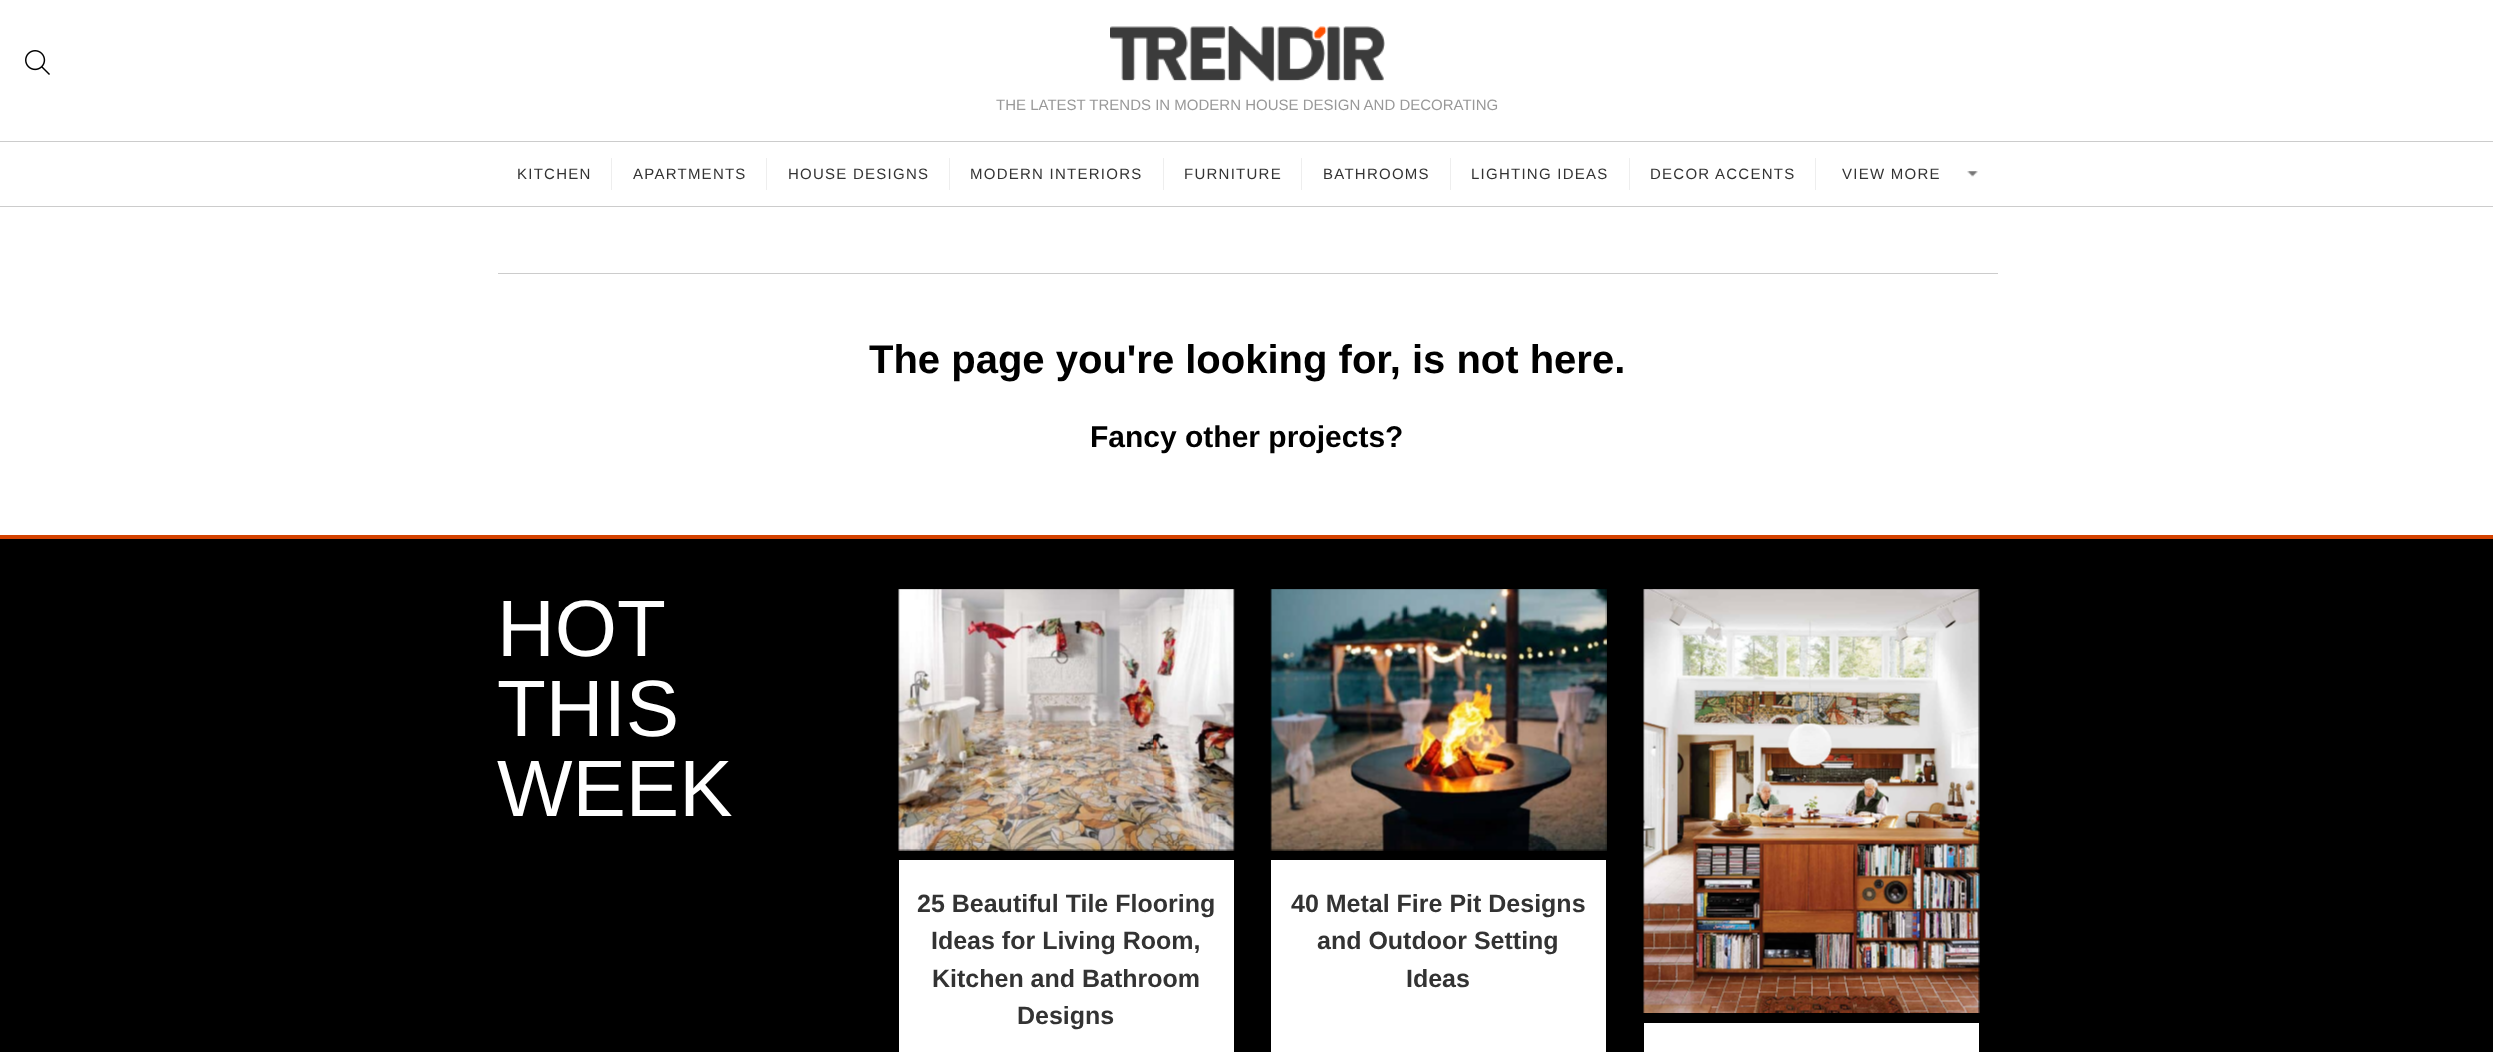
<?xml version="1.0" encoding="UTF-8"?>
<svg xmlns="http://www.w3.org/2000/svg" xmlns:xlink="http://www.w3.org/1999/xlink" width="2493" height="1052">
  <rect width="100%" height="100%" fill="#ffffff" />
  <image x="25" y="50" width="25" height="25" xlink:href="image1.png" />
  <image x="1110" y="26" width="275" height="56" xlink:href="image2.png" />
  <rect y="141" width="2493" height="1" fill="#cccccc" />
  <rect y="206" width="2493" height="1" fill="#cccccc" />
  <rect x="611" y="158" width="1" height="32" fill="#eeeeee" />
  <rect x="766" y="158" width="1" height="32" fill="#eeeeee" />
  <rect x="949" y="158" width="1" height="32" fill="#eeeeee" />
  <rect x="1163" y="158" width="1" height="32" fill="#eeeeee" />
  <rect x="1301" y="158" width="1" height="32" fill="#eeeeee" />
  <rect x="1450" y="158" width="1" height="32" fill="#eeeeee" />
  <rect x="1629" y="158" width="1" height="32" fill="#eeeeee" />
  <rect x="1815" y="158" width="1" height="32" fill="#eeeeee" />
  <image x="1967" y="171" width="11" height="6" xlink:href="image3.png" />
  <rect x="498" y="273" width="1500" height="1" fill="#cccccc" />
  <rect y="539" width="2493" height="513" fill="#000000" />
  <rect y="535" width="2493" height="4" fill="#d44200" />
  <image x="898" y="589" width="337" height="262" xlink:href="image4.png" />
  <rect x="899" y="860" width="335" height="192" fill="#ffffff" />
  <image x="1270" y="589" width="337" height="262" xlink:href="image5.png" />
  <rect x="1271" y="860" width="335" height="192" fill="#ffffff" />
  <image x="1643" y="589" width="337" height="424" xlink:href="image6.png" />
  <rect x="1644" y="1023" width="335" height="29" fill="#ffffff" />
  <text x="996" y="110" style="font-family: Liberation Sans; font-size: 15px; fill: #999999">THE LATEST TRENDS IN MODERN HOUSE DESIGN AND DECORATING</text>
  <text x="517" y="179" style="font-family: Liberation Sans; font-size: 15px; letter-spacing: 1.25px; fill: #333333">KITCHEN</text>
  <text x="633" y="179" style="font-family: Liberation Sans; font-size: 15px; letter-spacing: 1.25px; fill: #333333">APARTMENTS</text>
  <text x="788" y="179" style="font-family: Liberation Sans; font-size: 15px; letter-spacing: 1.25px; fill: #333333">HOUSE DESIGNS</text>
  <text x="970" y="179" style="font-family: Liberation Sans; font-size: 15px; letter-spacing: 1.25px; fill: #333333">MODERN INTERIORS</text>
  <text x="1184" y="179" style="font-family: Liberation Sans; font-size: 15px; letter-spacing: 1.25px; fill: #333333">FURNITURE</text>
  <text x="1323" y="179" style="font-family: Liberation Sans; font-size: 15px; letter-spacing: 1.25px; fill: #333333">BATHROOMS</text>
  <text x="1471" y="179" style="font-family: Liberation Sans; font-size: 15px; letter-spacing: 1.25px; fill: #333333">LIGHTING IDEAS</text>
  <text x="1650" y="179" style="font-family: Liberation Sans; font-size: 15px; letter-spacing: 1.25px; fill: #333333">DECOR ACCENTS</text>
  <text x="1842" y="179" style="font-family: Liberation Sans; font-size: 15px; letter-spacing: 1.25px; fill: #333333">VIEW MORE</text>
  <text x="869" y="373" style="font-family: Liberation Sans; font-size: 40px; font-weight: bold; fill: #000000">The page you're looking for, is not here.</text>
  <text x="1090" y="447" style="font-family: Liberation Sans; font-size: 30px; font-weight: bold; fill: #000000">Fancy other projects?</text>
  <text x="497" y="656" style="font-family: Liberation Sans; font-size: 80px; fill: #ffffff">HOT</text>
  <text x="497" y="736" style="font-family: Liberation Sans; font-size: 80px; fill: #ffffff">THIS</text>
  <text x="497" y="816" style="font-family: Liberation Sans; font-size: 80px; fill: #ffffff">WEEK</text>
  <text x="917" y="912" style="font-family: Liberation Sans; font-size: 25px; font-weight: bold; fill: #333333">25 Beautiful Tile Flooring</text>
  <text x="931" y="949" style="font-family: Liberation Sans; font-size: 25px; font-weight: bold; fill: #333333">Ideas for Living Room,</text>
  <text x="932" y="987" style="font-family: Liberation Sans; font-size: 25px; font-weight: bold; fill: #333333">Kitchen and Bathroom</text>
  <text x="1017" y="1024" style="font-family: Liberation Sans; font-size: 25px; font-weight: bold; fill: #333333">Designs</text>
  <text x="1291" y="912" style="font-family: Liberation Sans; font-size: 25px; font-weight: bold; fill: #333333">40 Metal Fire Pit Designs</text>
  <text x="1317" y="949" style="font-family: Liberation Sans; font-size: 25px; font-weight: bold; fill: #333333">and Outdoor Setting</text>
  <text x="1406" y="987" style="font-family: Liberation Sans; font-size: 25px; font-weight: bold; fill: #333333">Ideas</text>
</svg>
